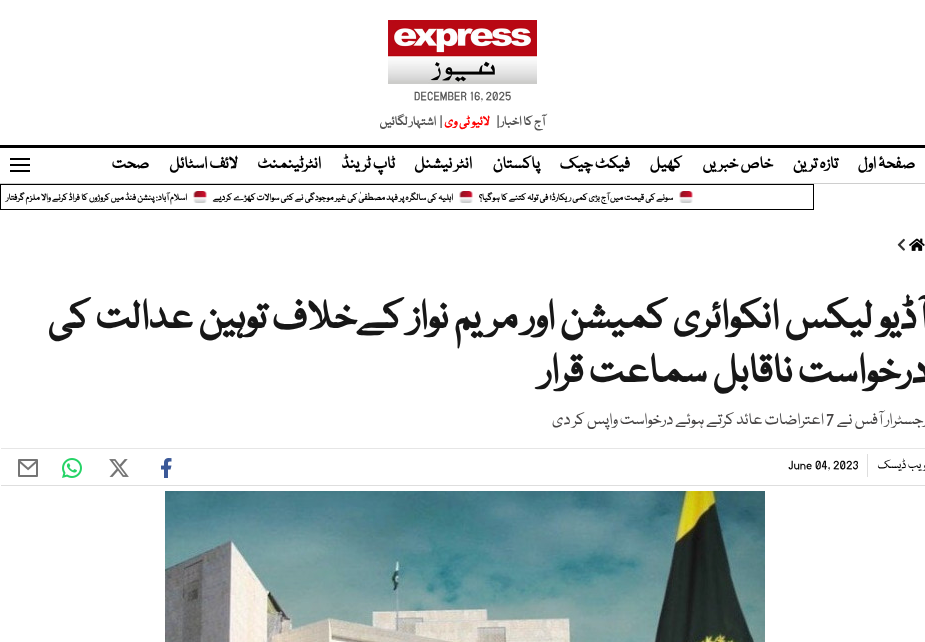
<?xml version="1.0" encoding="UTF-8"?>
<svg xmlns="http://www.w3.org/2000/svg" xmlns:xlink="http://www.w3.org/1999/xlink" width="925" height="642">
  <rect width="100%" height="100%" fill="#ffffff" />
  <image x="388" y="20" width="149" height="64" xlink:href="image1.png" />
  <rect y="145" width="925" height="3" fill="#000000" />
  <rect y="183" width="925" height="1" fill="#cecece" />
  <rect x="10" y="158" width="20" height="2" fill="#000000" />
  <rect x="10" y="164" width="20" height="2" fill="#000000" />
  <rect x="10" y="170" width="20" height="2" fill="#000000" />
  <rect x="0.5" y="184.5" width="813" height="25" fill="none" stroke="#000000" />
  <image x="679" y="191" width="14" height="12" xlink:href="image2.png" />
  <image x="459" y="191" width="14" height="12" xlink:href="image3.png" />
  <image x="193" y="191" width="14" height="12" xlink:href="image2.png" />
  <image x="909" y="238" width="16" height="13" xlink:href="image4.png" />
  <image x="897" y="238" width="8" height="13" xlink:href="image5.png" />
  <rect x="1" y="448" width="924" height="1" fill="#e6e6e6" />
  <rect x="1" y="485" width="924" height="1" fill="#dedede" />
  <rect x="867" y="454" width="1" height="23" fill="#dedede" />
  <image x="161" y="458" width="11" height="20" xlink:href="image6.png" />
  <image x="109" y="459" width="20" height="18" xlink:href="image7.png" />
  <image x="62" y="458" width="20" height="20" xlink:href="image8.png" />
  <image x="18" y="459" width="20" height="18" xlink:href="image9.png" />
  <image x="165" y="491" width="600" height="151" xlink:href="image10.png" />
  <text x="414" y="99" style="font-family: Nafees; font-size: 13px; fill: #575757">DECEMBER 16, 2025</text>
  <text x="545" y="125" style="font-family: Nafees; font-size: 14px; font-weight: bold; direction: rtl; fill: #575757">آج کا اخبار</text>
  <text x="497" y="125" style="font-family: Nafees; font-size: 14px; font-weight: bold; fill: #575757">|</text>
  <text x="490" y="125" style="font-family: Nafees; font-size: 14px; font-weight: bold; direction: rtl; fill: #ff0000">لائیو ٹی وی</text>
  <text x="440" y="125" style="font-family: Nafees; font-size: 14px; font-weight: bold; fill: #575757">|</text>
  <text x="436" y="125" style="font-family: Nafees; font-size: 14px; font-weight: bold; direction: rtl; fill: #575757">اشتہار لگائیں</text>
  <text x="915" y="168" style="font-family: Nafees; font-size: 18px; font-weight: bold; direction: rtl; fill: #000000">صفحۂ اول</text>
  <text x="838" y="168" style="font-family: Nafees; font-size: 18px; font-weight: bold; direction: rtl; fill: #000000">تازہ ترین</text>
  <text x="773" y="168" style="font-family: Nafees; font-size: 18px; font-weight: bold; direction: rtl; fill: #000000">خاص خبریں</text>
  <text x="682" y="168" style="font-family: Nafees; font-size: 18px; font-weight: bold; direction: rtl; fill: #000000">کھیل</text>
  <text x="630" y="168" style="font-family: Nafees; font-size: 18px; font-weight: bold; direction: rtl; fill: #000000">فیکٹ چیک</text>
  <text x="540" y="168" style="font-family: Nafees; font-size: 18px; font-weight: bold; direction: rtl; fill: #000000">پاکستان</text>
  <text x="472" y="168" style="font-family: Nafees; font-size: 18px; font-weight: bold; direction: rtl; fill: #000000">انٹر نیشنل</text>
  <text x="395" y="168" style="font-family: Nafees; font-size: 18px; font-weight: bold; direction: rtl; fill: #000000">ٹاپ ٹرینڈ</text>
  <text x="321" y="168" style="font-family: Nafees; font-size: 18px; font-weight: bold; direction: rtl; fill: #000000">انٹرٹینمنٹ</text>
  <text x="238" y="168" style="font-family: Nafees; font-size: 18px; font-weight: bold; direction: rtl; fill: #000000">لائف اسٹائل</text>
  <text x="149" y="168" style="font-family: Nafees; font-size: 18px; font-weight: bold; direction: rtl; fill: #000000">صحت</text>
  <text x="673" y="200" style="font-family: Nafees; font-size: 10px; font-weight: bold; direction: rtl; fill: #000000">سونے کی قیمت میں آج بڑی کمی ریکارڈ؛ فی تولہ کتنے کا ہوگیا؟</text>
  <text x="453" y="200" style="font-family: Nafees; font-size: 10px; font-weight: bold; direction: rtl; fill: #000000">اہلیہ کی سالگرہ پر فہد مصطفیٰ کی غیر موجودگی نے کئی سوالات کھڑے کردیے</text>
  <text x="187" y="200" style="font-family: Nafees; font-size: 10px; font-weight: bold; direction: rtl; fill: #000000">اسلام آباد: پنشن فنڈ میں کروڑوں کا فراڈ کرنے والا ملزم گرفتار</text>
  <text x="928" y="328" style="font-family: Nafees; font-size: 44px; font-weight: bold; direction: rtl; fill: #171717">آڈیو لیکس انکوائری کمیشن اور مریم نواز کےخلاف توہین عدالت کی</text>
  <text x="928" y="382" style="font-family: Nafees; font-size: 44px; font-weight: bold; direction: rtl; fill: #171717">درخواست ناقابل سماعت قرار</text>
  <text x="928" y="424" style="font-family: Nafees; font-size: 18px; direction: rtl; fill: #464444">رجسٹرار آفس نے</text>
  <text x="826" y="424" style="font-family: Nafees; font-size: 18px; fill: #464444">7</text>
  <text x="824" y="424" style="font-family: Nafees; font-size: 18px; direction: rtl; fill: #464444">اعتراضات عائد کرتے ہوئے درخواست واپس کر دی</text>
  <text x="927" y="468" style="font-family: Nafees; font-size: 13px; direction: rtl; fill: #000000">ویب ڈیسک</text>
  <text x="788" y="468" style="font-family: Nafees; font-size: 13px; fill: #000000">June 04, 2023</text>
</svg>
